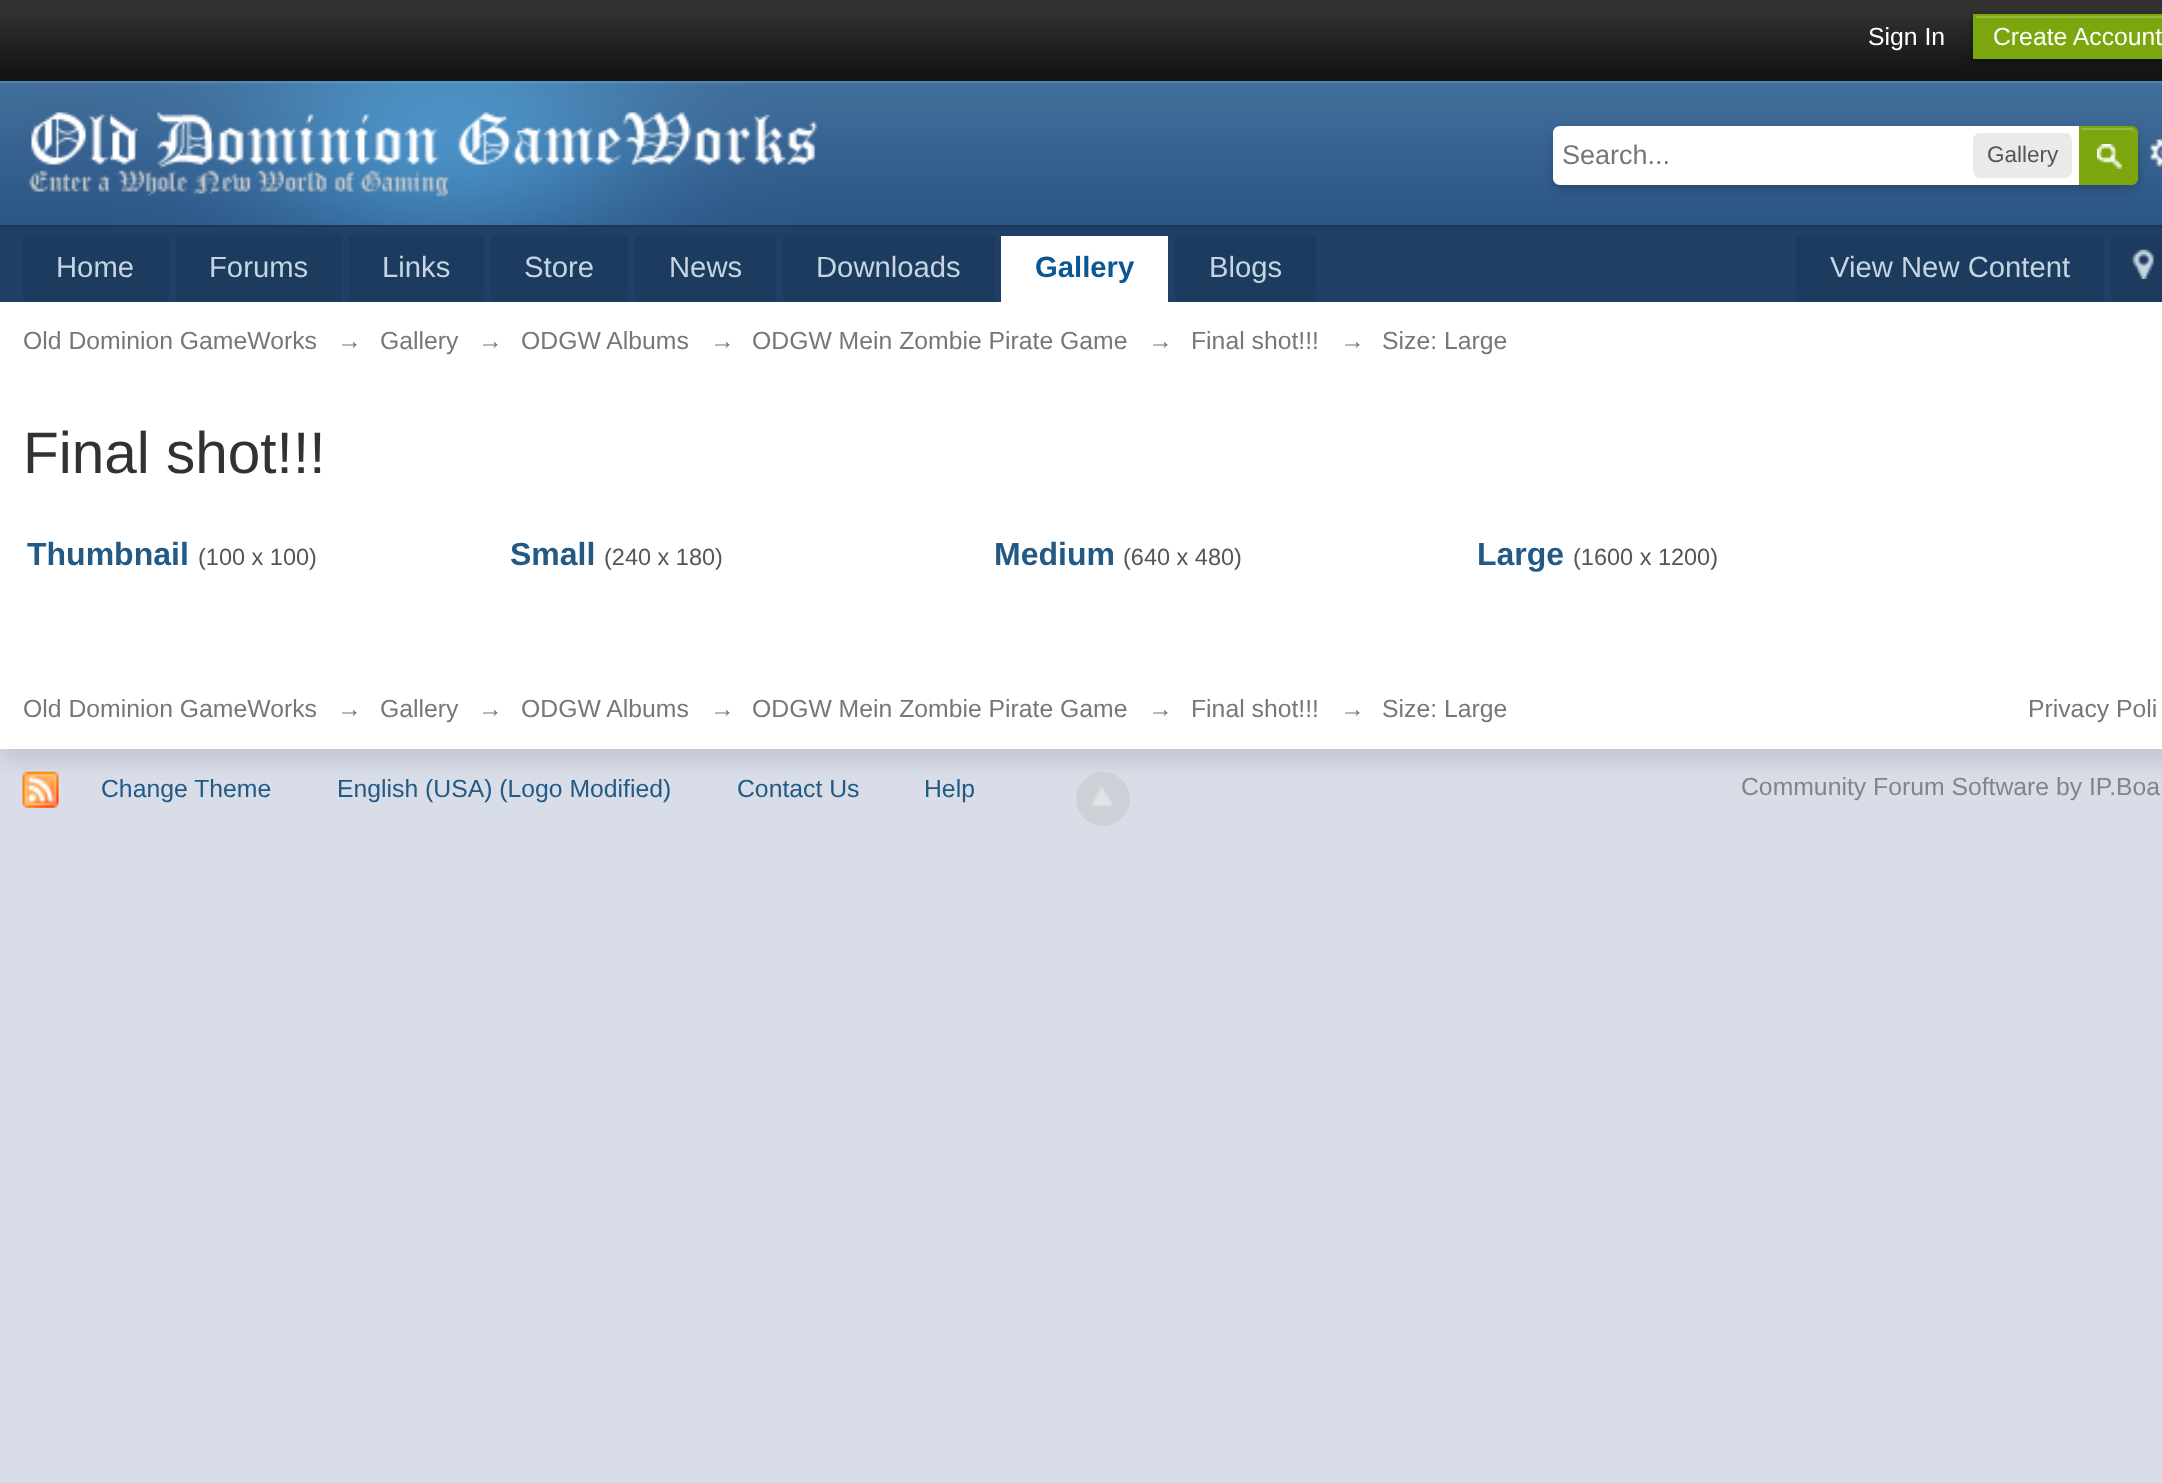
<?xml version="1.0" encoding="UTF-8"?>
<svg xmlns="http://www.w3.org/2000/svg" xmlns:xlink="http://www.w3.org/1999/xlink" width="2162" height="1483">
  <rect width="100%" height="100%" fill="#d8dde8" />
  <rect width="2162" height="18" fill="#323232" />
  <image x="0" y="18" width="2162" height="63" xlink:href="image1.png" />
  <rect x="1973" y="16" width="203" height="45" fill="#000000" fill-opacity="0.4" filter="blur(4.5px)" />
  <rect x="1973" y="14" width="189" height="45" fill="#7ba60d" />
  <rect x="1976" y="16" width="186" height="2" fill="#95b83d" />
  <image x="0" y="81" width="2162" height="144" xlink:href="image2.png" />
  <rect y="225" width="2162" height="2" fill="#1b3759" />
  <image x="28" y="81" width="790" height="144" xlink:href="image3.png" />
  <image x="2150" y="139" width="12" height="29" xlink:href="image5.png" />
  <rect x="1553" y="131" width="585" height="58" rx="9" fill="#000000" fill-opacity="0.2" filter="blur(4.5px)" />
  <path d="M 1560 126 h 569 c 5 0 9 4 9 9 v 41 c 0 5 -4 9 -9 9 h -569 c -4 0 -7 -3 -7 -7 v -45 c 0 -4 3 -7 7 -7 z" fill="#ffffff" />
  <rect x="1973" y="133" width="99" height="45" rx="7" fill="#eaeaea" />
  <path d="M 2079 126 h 52 c 4 0 7 3 7 7 v 45 c 0 4 -3 7 -7 7 h -52 z" fill="#7ba60d" />
  <image x="2097" y="144" width="25" height="25" xlink:href="image4.png" />
  <path d="M 2081 130 h 50 c 2 0 4 3 4 5 v -2 c 0 -3 -2 -5 -5 -5 h -49 z" fill="#95b83d" />
  <path d="M 2080 127 h 51 c 3.5 0 6 2.5 6 6 v 45 c 0 3.5 -2.5 6 -6 6 h -51 z" fill="none" stroke="#7ba60d" stroke-width="2" />
  <rect y="227" width="2162" height="75" fill="#204066" />
  <rect y="313" width="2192" height="448" fill="#000000" fill-opacity="0.1" filter="blur(10px)" />
  <rect x="23" y="236" width="146" height="66" fill="#1c3b5f" />
  <rect x="176" y="236" width="166" height="66" fill="#1c3b5f" />
  <rect x="349" y="236" width="135" height="66" fill="#1c3b5f" />
  <rect x="491" y="236" width="137" height="66" fill="#1c3b5f" />
  <rect x="635" y="236" width="141" height="66" fill="#1c3b5f" />
  <rect x="783" y="236" width="212" height="66" fill="#1c3b5f" />
  <rect x="1001" y="236" width="167" height="66" fill="#ffffff" />
  <rect x="1175" y="236" width="141" height="66" fill="#1c3b5f" />
  <rect x="1796" y="236" width="308" height="66" fill="#1c3b5f" />
  <rect x="2111" y="236" width="51" height="66" fill="#1c3b5f" />
  <image x="2132" y="249" width="22" height="30" xlink:href="image6.png" />
  <rect y="302" width="2162" height="447" fill="#ffffff" />
  <image x="22" y="771" width="37" height="37" xlink:href="image7.png" />
  <circle cx="1103" cy="799" r="27" fill="#bdbdbd" fill-opacity="0.4" />
  <image x="1091" y="787" width="22" height="20" xlink:href="image8.png" />
  <text x="1868" y="45" style="font-family: Liberation Sans; font-size: 24.75px; fill: #ffffff">Sign In</text>
  <text x="1993" y="45" style="font-family: Liberation Sans; font-size: 24.75px; fill: #ffffff">Create Account</text>
  <text x="1562" y="164" style="font-family: Liberation Sans; font-size: 27px; fill: #777777">Search...</text>
  <text x="1987" y="162" style="font-family: Liberation Sans; font-size: 22.5px; fill: #555555">Gallery</text>
  <text x="56" y="277" style="font-family: Liberation Sans; font-size: 29.25px; fill: #c5d5e2">Home</text>
  <text x="209" y="277" style="font-family: Liberation Sans; font-size: 29.25px; fill: #c5d5e2">Forums</text>
  <text x="382" y="277" style="font-family: Liberation Sans; font-size: 29.25px; fill: #c5d5e2">Links</text>
  <text x="524" y="277" style="font-family: Liberation Sans; font-size: 29.25px; fill: #c5d5e2">Store</text>
  <text x="669" y="277" style="font-family: Liberation Sans; font-size: 29.25px; fill: #c5d5e2">News</text>
  <text x="816" y="277" style="font-family: Liberation Sans; font-size: 29.25px; fill: #c5d5e2">Downloads</text>
  <text x="1035" y="277" style="font-family: Liberation Sans; font-size: 29.25px; font-weight: bold; fill: #0b5794">Gallery</text>
  <text x="1209" y="277" style="font-family: Liberation Sans; font-size: 29.25px; fill: #c5d5e2">Blogs</text>
  <text x="1830" y="277" style="font-family: Liberation Sans; font-size: 29.25px; fill: #c5d5e2">View New Content</text>
  <text x="23" y="349" style="font-family: Liberation Sans; font-size: 24.75px; fill: #777777">Old Dominion GameWorks</text>
  <text x="337" y="349" style="font-family: Liberation Sans; font-size: 24.75px; fill: #777777">→</text>
  <text x="380" y="349" style="font-family: Liberation Sans; font-size: 24.75px; fill: #777777">Gallery</text>
  <text x="478" y="349" style="font-family: Liberation Sans; font-size: 24.75px; fill: #777777">→</text>
  <text x="521" y="349" style="font-family: Liberation Sans; font-size: 24.75px; fill: #777777">ODGW Albums</text>
  <text x="710" y="349" style="font-family: Liberation Sans; font-size: 24.75px; fill: #777777">→</text>
  <text x="752" y="349" style="font-family: Liberation Sans; font-size: 24.75px; fill: #777777">ODGW Mein Zombie Pirate Game</text>
  <text x="1148" y="349" style="font-family: Liberation Sans; font-size: 24.75px; fill: #777777">→</text>
  <text x="1191" y="349" style="font-family: Liberation Sans; font-size: 24.75px; fill: #777777">Final shot!!!</text>
  <text x="1340" y="349" style="font-family: Liberation Sans; font-size: 24.75px; fill: #777777">→</text>
  <text x="1382" y="349" style="font-family: Liberation Sans; font-size: 24.75px; fill: #777777">Size: Large</text>
  <text x="23" y="473" style="font-family: Liberation Sans; font-size: 58.5px; fill: #323232">Final shot!!!</text>
  <text x="27" y="565" style="font-family: Liberation Sans; font-size: 32px; font-weight: bold; fill: #225985">Thumbnail</text>
  <text x="198" y="565" style="font-family: Liberation Sans; font-size: 23.5px; fill: #555555">(100 x 100)</text>
  <text x="510" y="565" style="font-family: Liberation Sans; font-size: 32px; font-weight: bold; fill: #225985">Small</text>
  <text x="604" y="565" style="font-family: Liberation Sans; font-size: 23.5px; fill: #555555">(240 x 180)</text>
  <text x="994" y="565" style="font-family: Liberation Sans; font-size: 32px; font-weight: bold; fill: #225985">Medium</text>
  <text x="1123" y="565" style="font-family: Liberation Sans; font-size: 23.5px; fill: #555555">(640 x 480)</text>
  <text x="1477" y="565" style="font-family: Liberation Sans; font-size: 32px; font-weight: bold; fill: #225985">Large</text>
  <text x="1573" y="565" style="font-family: Liberation Sans; font-size: 23.5px; fill: #555555">(1600 x 1200)</text>
  <text x="23" y="717" style="font-family: Liberation Sans; font-size: 24.75px; fill: #777777">Old Dominion GameWorks</text>
  <text x="337" y="717" style="font-family: Liberation Sans; font-size: 24.75px; fill: #777777">→</text>
  <text x="380" y="717" style="font-family: Liberation Sans; font-size: 24.75px; fill: #777777">Gallery</text>
  <text x="478" y="717" style="font-family: Liberation Sans; font-size: 24.75px; fill: #777777">→</text>
  <text x="521" y="717" style="font-family: Liberation Sans; font-size: 24.75px; fill: #777777">ODGW Albums</text>
  <text x="710" y="717" style="font-family: Liberation Sans; font-size: 24.75px; fill: #777777">→</text>
  <text x="752" y="717" style="font-family: Liberation Sans; font-size: 24.75px; fill: #777777">ODGW Mein Zombie Pirate Game</text>
  <text x="1148" y="717" style="font-family: Liberation Sans; font-size: 24.75px; fill: #777777">→</text>
  <text x="1191" y="717" style="font-family: Liberation Sans; font-size: 24.75px; fill: #777777">Final shot!!!</text>
  <text x="1340" y="717" style="font-family: Liberation Sans; font-size: 24.75px; fill: #777777">→</text>
  <text x="1382" y="717" style="font-family: Liberation Sans; font-size: 24.75px; fill: #777777">Size: Large</text>
  <text x="2028" y="717" style="font-family: Liberation Sans; font-size: 24.75px; fill: #777777">Privacy Poli</text>
  <text x="101" y="797" style="font-family: Liberation Sans; font-size: 24.75px; fill: #225985">Change Theme</text>
  <text x="337" y="797" style="font-family: Liberation Sans; font-size: 24.75px; fill: #225985">English (USA) (Logo Modified)</text>
  <text x="737" y="797" style="font-family: Liberation Sans; font-size: 24.75px; fill: #225985">Contact Us</text>
  <text x="924" y="797" style="font-family: Liberation Sans; font-size: 24.75px; fill: #225985">Help</text>
  <text x="1741" y="795" style="font-family: Liberation Sans; font-size: 24.75px; fill: #848484">Community Forum Software by IP.Boa</text>
</svg>
